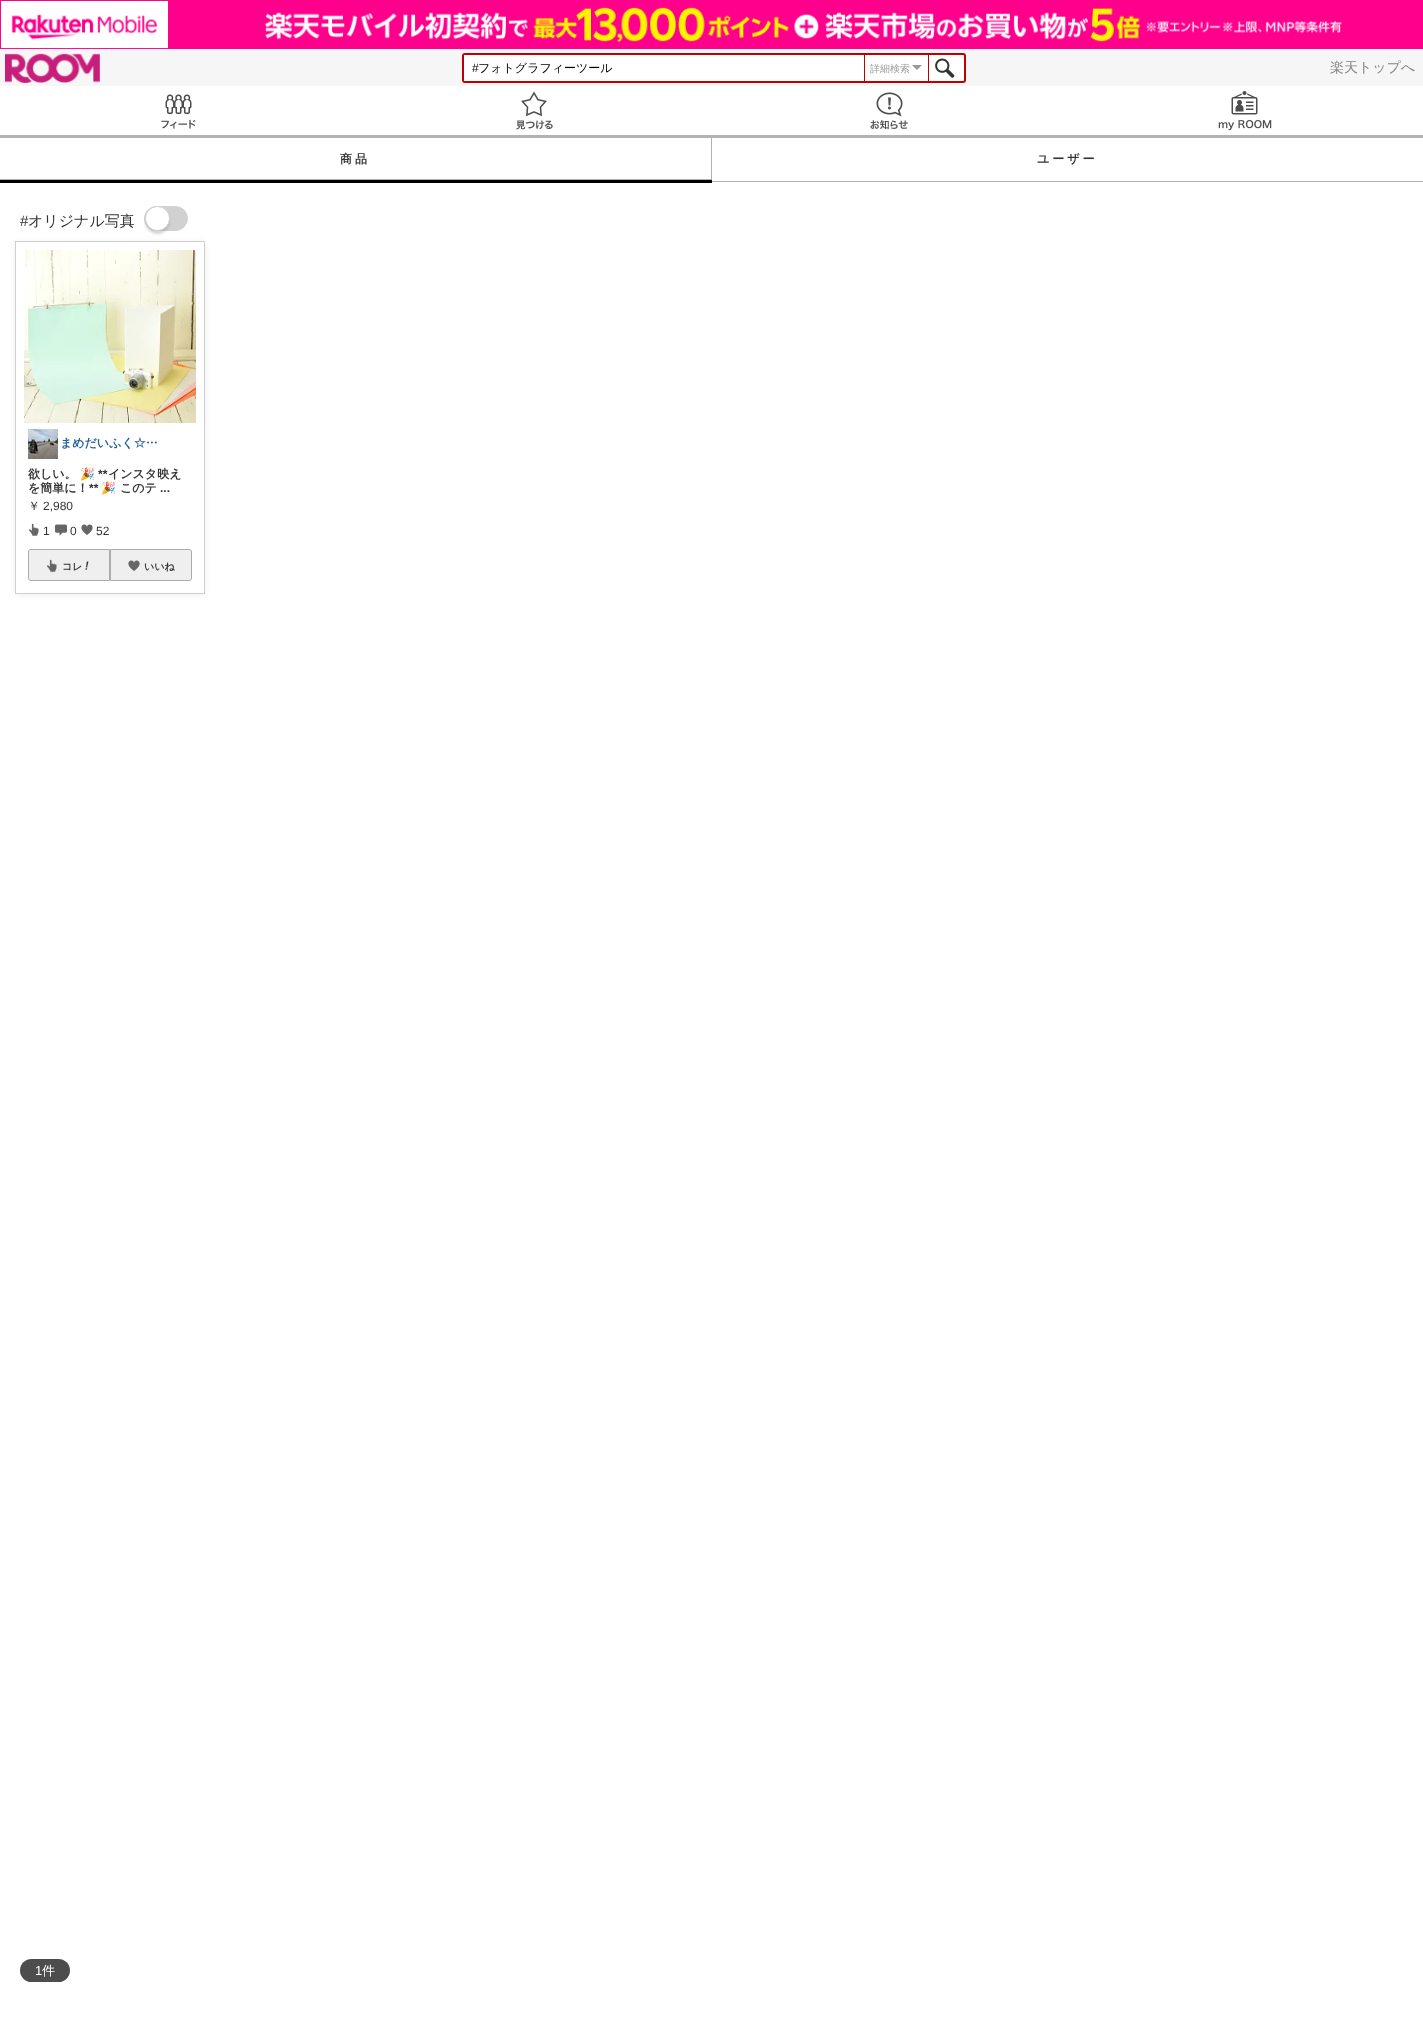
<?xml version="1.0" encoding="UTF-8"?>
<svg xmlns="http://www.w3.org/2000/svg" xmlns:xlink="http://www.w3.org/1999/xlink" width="1423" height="2036">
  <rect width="100%" height="100%" fill="#ffffff" />
  <image x="0" y="0" width="1423" height="49" xlink:href="image1.png" />
  <rect y="49" width="1423" height="37" fill="#f6f6f6" />
  <rect x="463" y="54" width="502" height="28" rx="2" fill="#ffffff" stroke="#bf0000" stroke-width="2" />
  <rect x="464" y="55" width="1" height="26" fill="#ffffff" />
  <rect x="864" y="55" width="1" height="26" fill="#bf0000" />
  <path d="M 912 65 h 10 l -5 5 z" fill="#999999" />
  <rect x="928" y="55" width="1" height="26" fill="#bf0000" />
  <image x="935" y="58" width="20" height="20" xlink:href="image2.png" />
  <image x="5" y="53" width="95" height="30" xlink:href="image3.png" />
  <image x="516" y="91" width="37" height="39" xlink:href="image4.png" />
  <rect x="712" y="135" width="711" height="3" fill="#b2b2b2" />
  <image x="1218" y="91" width="54" height="40" xlink:href="image5.png" />
  <rect y="135" width="712" height="3" fill="#b2b2b2" />
  <image x="161" y="94" width="35" height="35" xlink:href="image6.png" />
  <image x="870" y="92" width="38" height="38" xlink:href="image7.png" />
  <rect y="180" width="712" height="3" fill="#000000" />
  <rect x="711" y="138" width="1" height="42" fill="#b2b2b2" />
  <rect y="179" width="712" height="1" fill="#b2b2b2" />
  <rect x="712" y="181" width="711" height="1" fill="#b2b2b2" />
  <rect x="144.5" y="206.5" width="43" height="24" rx="12" fill="#d1d1d1" stroke="#d1d1d1" />
  <rect x="145" y="209" width="25" height="25" rx="12.5" fill="#999999" fill-opacity="0.4" filter="blur(1px)" />
  <circle cx="157.5" cy="218.5" r="12" fill="#ffffff" stroke="#d1d1d1" />
  <rect x="15" y="242" width="190" height="353" rx="3" fill="#efefef" filter="blur(3px)" />
  <rect x="15.5" y="241.5" width="189" height="352" fill="#ffffff" stroke="#cfcfcf" />
  <image x="24" y="250" width="172" height="173" xlink:href="image8.png" />
  <image x="28" y="429" width="30" height="30" xlink:href="image9.png" />
  <image x="29" y="523" width="10" height="13" xlink:href="image10.png" />
  <image x="55" y="524" width="12" height="12" xlink:href="image11.png" />
  <image x="81" y="524" width="12" height="11" xlink:href="image12.png" />
  <path d="M 31 549.5 h 78.5 v 31 h -78.5 c -1.5 0 -2.5 -1 -2.5 -2.5 v -26 c 0 -1.5 1 -2.5 2.5 -2.5 z" fill="#efefef" stroke="#ababab" />
  <image x="47" y="559" width="10" height="13" xlink:href="image13.png" />
  <image x="85" y="561" width="4" height="9" xlink:href="image14.png" />
  <path d="M 110.5 549.5 h 78.5 c 1.5 0 2.5 1 2.5 2.5 v 26 c 0 1.5 -1 2.5 -2.5 2.5 h -78.5 z" fill="#efefef" stroke="#ababab" />
  <image x="128" y="560" width="12" height="11" xlink:href="image15.png" />
  <rect x="20" y="1959" width="50" height="23" rx="11.5" fill="#4d4d4d" />
  <text x="472" y="72" style="font-family: Liberation Sans; font-size: 12px; fill: #000000">#</text>
  <text x="478" y="72" style="font-family: WenQuanYi Zen Hei; font-size: 12px; font-weight: 500; fill: #000000">フォトグラフィーツール</text>
  <text x="870" y="72" style="font-family: WenQuanYi Zen Hei; font-size: 10px; font-weight: 500; fill: #999999">詳細検索</text>
  <text x="1330" y="72" style="font-family: WenQuanYi Zen Hei; font-size: 14px; font-weight: 500; fill: #848484">楽天トップへ</text>
  <text x="340" y="163" style="font-family: WenQuanYi Zen Hei; font-size: 12px; font-weight: bold; letter-spacing: 3px; fill: #333333">商品</text>
  <text x="1037" y="163" style="font-family: WenQuanYi Zen Hei; font-size: 12px; font-weight: bold; letter-spacing: 3px; fill: #333333">ユーザー</text>
  <text x="20" y="226" style="font-family: Liberation Sans; font-size: 15px; fill: #333333">#</text>
  <text x="28" y="226" style="font-family: WenQuanYi Zen Hei; font-size: 15px; font-weight: 500; fill: #333333">オリジナル写真</text>
  <text x="60" y="447" style="font-family: WenQuanYi Zen Hei; font-size: 12px; font-weight: bold; fill: #266099">まめだいふく☆…</text>
  <text x="28" y="478" style="font-family: WenQuanYi Zen Hei; font-size: 12px; font-weight: bold; fill: #333333">欲しい。</text>
  <text x="80" y="478" style="font-family: Noto Color Emoji; font-size: 12px; font-weight: bold; fill: #333333">🎉</text>
  <text x="98" y="478" style="font-family: Liberation Sans; font-size: 12px; font-weight: bold; fill: #333333">**</text>
  <text x="108" y="478" style="font-family: WenQuanYi Zen Hei; font-size: 12px; font-weight: bold; fill: #333333">インスタ映え</text>
  <text x="28" y="492" style="font-family: WenQuanYi Zen Hei; font-size: 12px; font-weight: bold; fill: #333333">を簡単に！</text>
  <text x="89" y="492" style="font-family: Liberation Sans; font-size: 12px; font-weight: bold; fill: #333333">**</text>
  <text x="101" y="492" style="font-family: Noto Color Emoji; font-size: 12px; font-weight: bold; fill: #333333">🎉</text>
  <text x="120" y="492" style="font-family: WenQuanYi Zen Hei; font-size: 12px; font-weight: bold; fill: #333333">このテ</text>
  <text x="160" y="492" style="font-family: Liberation Sans; font-size: 12px; font-weight: bold; fill: #333333">...</text>
  <text x="28" y="510" style="font-family: WenQuanYi Zen Hei; font-size: 12px; font-weight: 500; fill: #333333">￥</text>
  <text x="43" y="510" style="font-family: Liberation Sans; font-size: 12px; fill: #333333">2,980</text>
  <text x="43" y="535" style="font-family: Liberation Sans; font-size: 12px; fill: #333333">1</text>
  <text x="70" y="535" style="font-family: Liberation Sans; font-size: 12px; fill: #333333">0</text>
  <text x="96" y="535" style="font-family: Liberation Sans; font-size: 12px; fill: #333333">52</text>
  <text x="62" y="570" style="font-family: WenQuanYi Zen Hei; font-size: 10px; font-weight: bold; fill: #333333">コレ</text>
  <text x="144" y="570" style="font-family: WenQuanYi Zen Hei; font-size: 10px; font-weight: bold; fill: #333333">いいね</text>
  <text x="35" y="1975" style="font-family: Liberation Sans; font-size: 13px; fill: #ffffff">1</text>
  <text x="42" y="1975" style="font-family: WenQuanYi Zen Hei; font-size: 13px; font-weight: 500; fill: #ffffff">件</text>
</svg>
